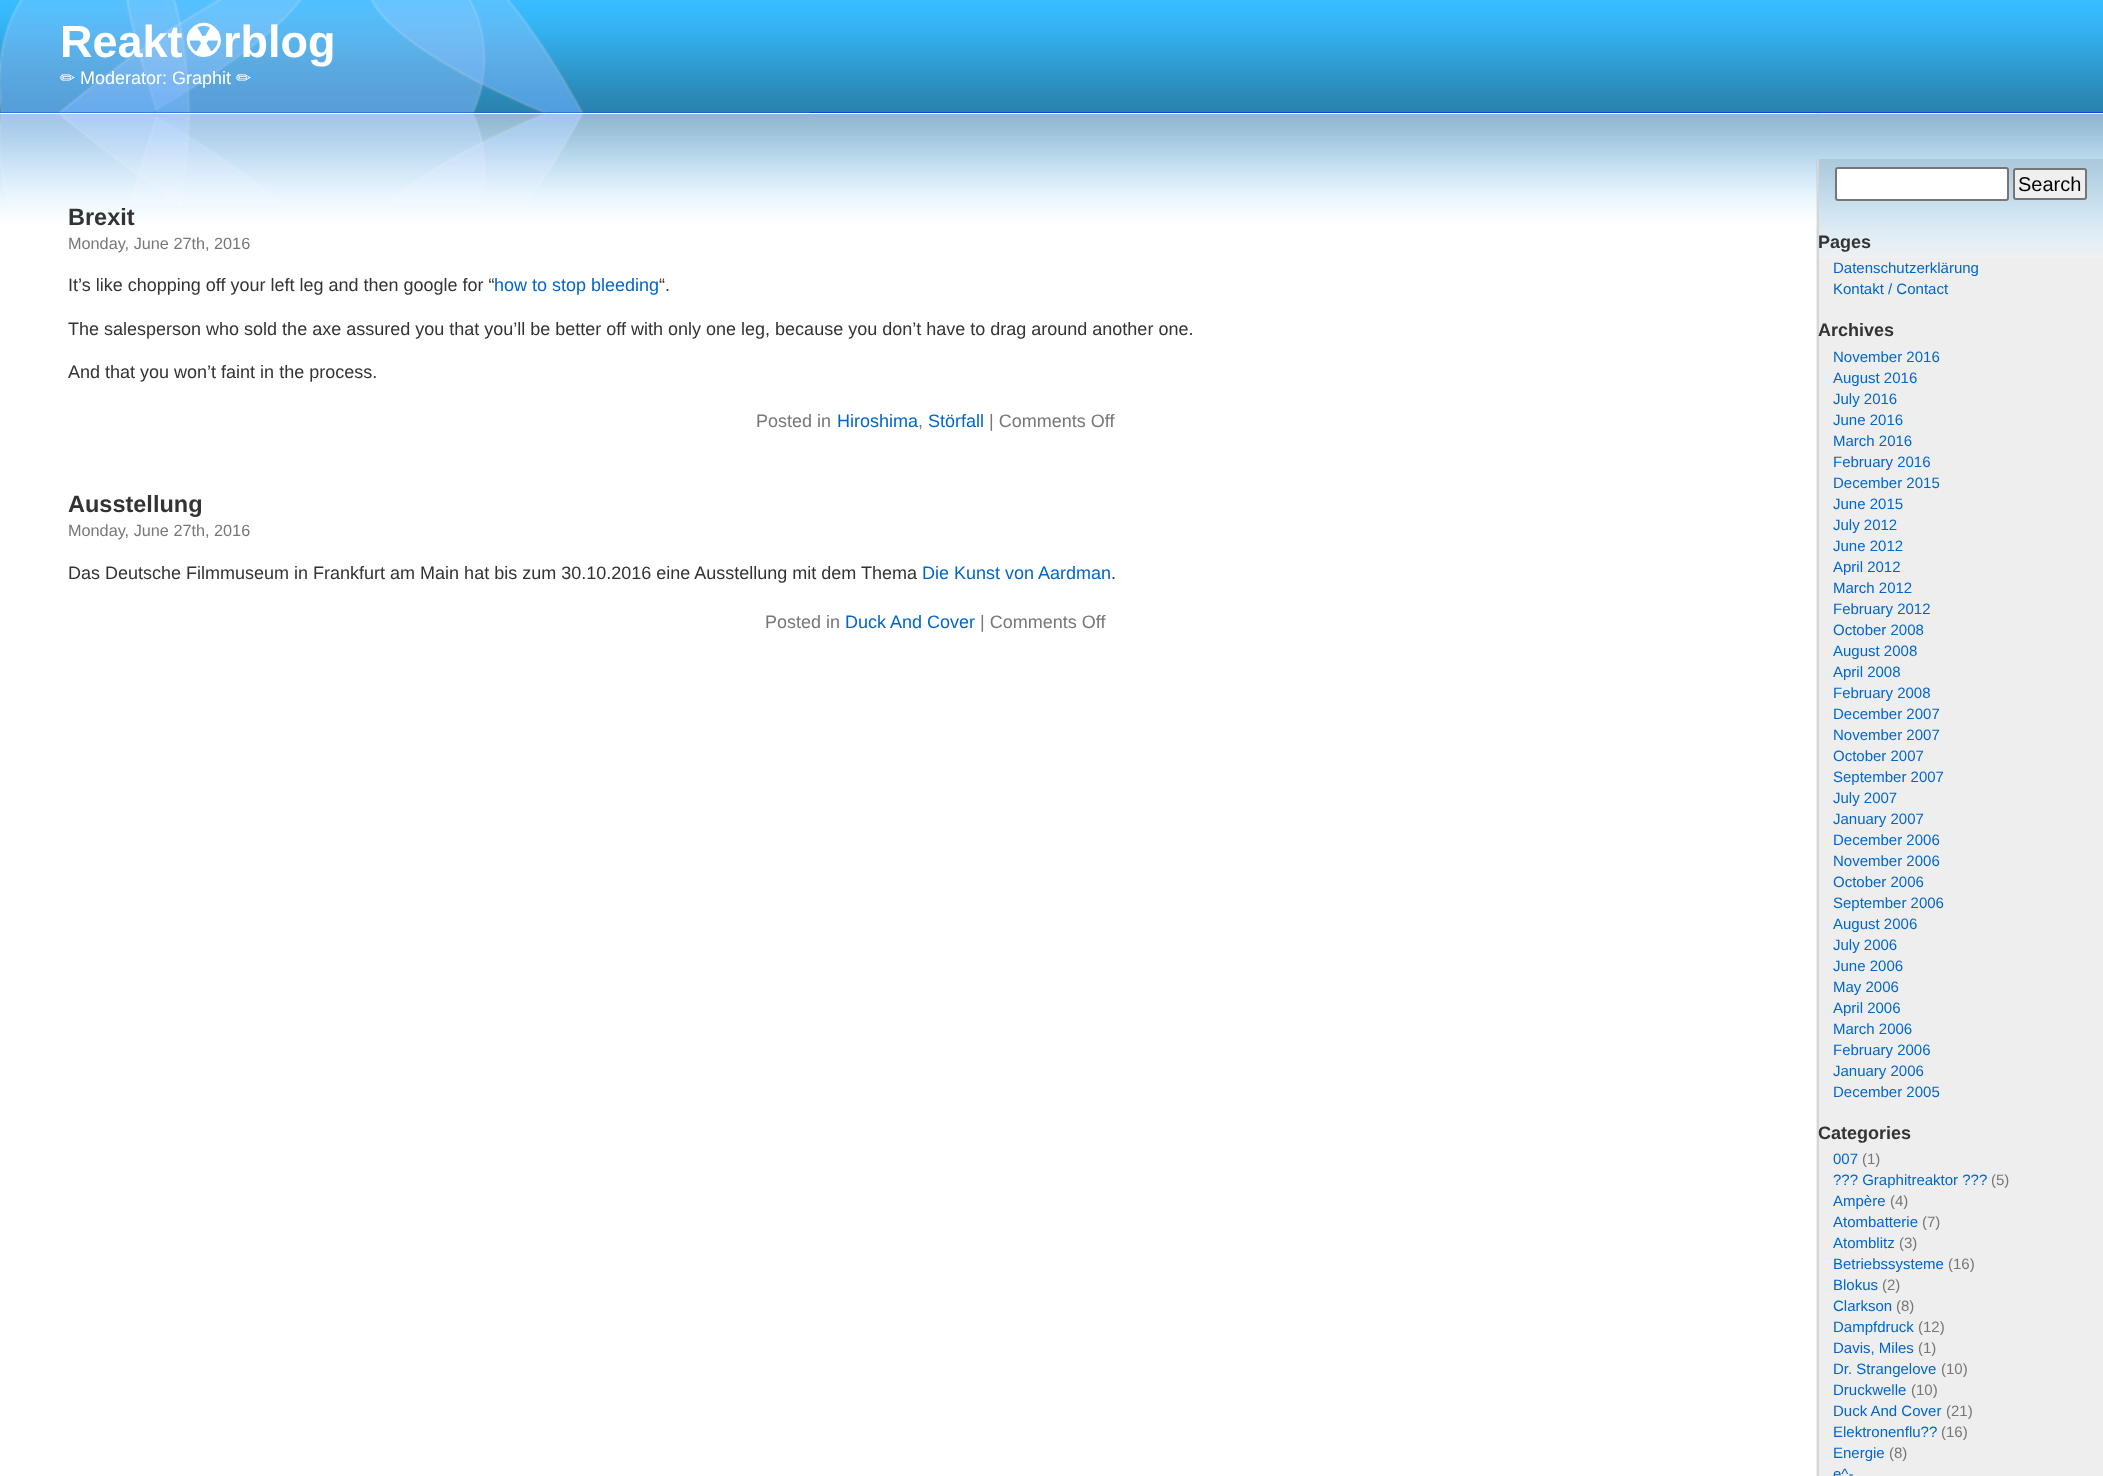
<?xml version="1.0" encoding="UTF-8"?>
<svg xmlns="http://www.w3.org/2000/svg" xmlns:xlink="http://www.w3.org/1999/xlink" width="2103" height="1476">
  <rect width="100%" height="100%" fill="#ffffff" />
  <image x="1816" y="113" width="287" height="1363" xlink:href="image1.png" />
  <rect y="112" width="2103" height="1" fill="#0000ff" />
  <image x="0" y="0" width="2103" height="113" xlink:href="image2.png" />
  <image x="0" y="0" width="810" height="113" xlink:href="image3.png" />
  <image x="0" y="114" width="2103" height="113" xlink:href="image4.png" />
  <image x="0" y="114" width="583" height="91" xlink:href="image5.png" />
  <rect x="1819" y="258" width="284" height="1218" fill="#eeeeee" />
  <image x="1816" y="159" width="287" height="99" xlink:href="image6.png" />
  <rect x="1817" y="159" width="2" height="1317" fill="#d6d6d6" />
  <rect x="1836" y="168" width="172" height="32" rx="2" fill="#ffffff" stroke="#767676" stroke-width="2" />
  <rect x="2014" y="169" width="72" height="30" rx="2" fill="#efefef" stroke="#767676" stroke-width="2" />
  <text x="60" y="57" style="font-family: Liberation Sans; font-size: 45px; font-weight: bold; fill: #ffffff">Reakt</text>
  <text x="183" y="57" style="font-family: DejaVu Sans; font-size: 45px; font-weight: bold; fill: #ffffff">☢</text>
  <text x="223" y="57" style="font-family: Liberation Sans; font-size: 45px; font-weight: bold; fill: #ffffff">rblog</text>
  <text x="60" y="84" style="font-family: DejaVu Sans; font-size: 18px; fill: #ffffff">✏</text>
  <text x="80" y="84" style="font-family: Liberation Sans; font-size: 18px; fill: #ffffff">Moderator: Graphit</text>
  <text x="236" y="84" style="font-family: DejaVu Sans; font-size: 18px; fill: #ffffff">✏</text>
  <text x="68" y="225" style="font-family: Liberation Sans; font-size: 23.5px; font-weight: bold; fill: #333333">Brexit</text>
  <text x="68" y="249" style="font-family: Liberation Sans; font-size: 16.25px; fill: #777777">Monday, June 27th, 2016</text>
  <text x="68" y="291" style="font-family: Liberation Sans; font-size: 18px; fill: #333333">It’s like chopping off your left leg and then google for “</text>
  <text x="494" y="291" style="font-family: Liberation Sans; font-size: 18px; fill: #0066cc">how to stop bleeding</text>
  <text x="659" y="291" style="font-family: Liberation Sans; font-size: 18px; fill: #333333">“.</text>
  <text x="68" y="335" style="font-family: Liberation Sans; font-size: 18px; fill: #333333">The salesperson who sold the axe assured you that you’ll be better off with only one leg, because you don’t have to drag around another one.</text>
  <text x="68" y="378" style="font-family: Liberation Sans; font-size: 18px; fill: #333333">And that you won’t faint in the process.</text>
  <text x="756" y="427" style="font-family: Liberation Sans; font-size: 18px; fill: #777777">Posted in</text>
  <text x="837" y="427" style="font-family: Liberation Sans; font-size: 18px; fill: #0066cc">Hiroshima</text>
  <text x="918" y="427" style="font-family: Liberation Sans; font-size: 18px; fill: #777777">,</text>
  <text x="928" y="427" style="font-family: Liberation Sans; font-size: 18px; fill: #0066cc">Störfall</text>
  <text x="989" y="427" style="font-family: Liberation Sans; font-size: 18px; fill: #777777">| Comments Off</text>
  <text x="68" y="512" style="font-family: Liberation Sans; font-size: 23.5px; font-weight: bold; fill: #333333">Ausstellung</text>
  <text x="68" y="536" style="font-family: Liberation Sans; font-size: 16.25px; fill: #777777">Monday, June 27th, 2016</text>
  <text x="68" y="579" style="font-family: Liberation Sans; font-size: 18px; fill: #333333">Das Deutsche Filmmuseum in Frankfurt am Main hat bis zum 30.10.2016 eine Ausstellung mit dem Thema</text>
  <text x="922" y="579" style="font-family: Liberation Sans; font-size: 18px; fill: #0066cc">Die Kunst von Aardman</text>
  <text x="1111" y="579" style="font-family: Liberation Sans; font-size: 18px; fill: #333333">.</text>
  <text x="765" y="628" style="font-family: Liberation Sans; font-size: 18px; fill: #777777">Posted in</text>
  <text x="845" y="628" style="font-family: Liberation Sans; font-size: 18px; fill: #0066cc">Duck And Cover</text>
  <text x="980" y="628" style="font-family: Liberation Sans; font-size: 18px; fill: #777777">| Comments Off</text>
  <text x="2018" y="191" style="font-family: Liberation Sans; font-size: 20px; fill: #000000">Search</text>
  <text x="1818" y="248" style="font-family: Liberation Sans; font-size: 18px; font-weight: bold; fill: #333333">Pages</text>
  <text x="1833" y="273" style="font-family: Liberation Sans; font-size: 15px; fill: #0066cc">Datenschutzerklärung</text>
  <text x="1833" y="294" style="font-family: Liberation Sans; font-size: 15px; fill: #0066cc">Kontakt / Contact</text>
  <text x="1818" y="336" style="font-family: Liberation Sans; font-size: 18px; font-weight: bold; fill: #333333">Archives</text>
  <text x="1833" y="362" style="font-family: Liberation Sans; font-size: 15px; fill: #0066cc">November 2016</text>
  <text x="1833" y="383" style="font-family: Liberation Sans; font-size: 15px; fill: #0066cc">August 2016</text>
  <text x="1833" y="404" style="font-family: Liberation Sans; font-size: 15px; fill: #0066cc">July 2016</text>
  <text x="1833" y="425" style="font-family: Liberation Sans; font-size: 15px; fill: #0066cc">June 2016</text>
  <text x="1833" y="446" style="font-family: Liberation Sans; font-size: 15px; fill: #0066cc">March 2016</text>
  <text x="1833" y="467" style="font-family: Liberation Sans; font-size: 15px; fill: #0066cc">February 2016</text>
  <text x="1833" y="488" style="font-family: Liberation Sans; font-size: 15px; fill: #0066cc">December 2015</text>
  <text x="1833" y="509" style="font-family: Liberation Sans; font-size: 15px; fill: #0066cc">June 2015</text>
  <text x="1833" y="530" style="font-family: Liberation Sans; font-size: 15px; fill: #0066cc">July 2012</text>
  <text x="1833" y="551" style="font-family: Liberation Sans; font-size: 15px; fill: #0066cc">June 2012</text>
  <text x="1833" y="572" style="font-family: Liberation Sans; font-size: 15px; fill: #0066cc">April 2012</text>
  <text x="1833" y="593" style="font-family: Liberation Sans; font-size: 15px; fill: #0066cc">March 2012</text>
  <text x="1833" y="614" style="font-family: Liberation Sans; font-size: 15px; fill: #0066cc">February 2012</text>
  <text x="1833" y="635" style="font-family: Liberation Sans; font-size: 15px; fill: #0066cc">October 2008</text>
  <text x="1833" y="656" style="font-family: Liberation Sans; font-size: 15px; fill: #0066cc">August 2008</text>
  <text x="1833" y="677" style="font-family: Liberation Sans; font-size: 15px; fill: #0066cc">April 2008</text>
  <text x="1833" y="698" style="font-family: Liberation Sans; font-size: 15px; fill: #0066cc">February 2008</text>
  <text x="1833" y="719" style="font-family: Liberation Sans; font-size: 15px; fill: #0066cc">December 2007</text>
  <text x="1833" y="740" style="font-family: Liberation Sans; font-size: 15px; fill: #0066cc">November 2007</text>
  <text x="1833" y="761" style="font-family: Liberation Sans; font-size: 15px; fill: #0066cc">October 2007</text>
  <text x="1833" y="782" style="font-family: Liberation Sans; font-size: 15px; fill: #0066cc">September 2007</text>
  <text x="1833" y="803" style="font-family: Liberation Sans; font-size: 15px; fill: #0066cc">July 2007</text>
  <text x="1833" y="824" style="font-family: Liberation Sans; font-size: 15px; fill: #0066cc">January 2007</text>
  <text x="1833" y="845" style="font-family: Liberation Sans; font-size: 15px; fill: #0066cc">December 2006</text>
  <text x="1833" y="866" style="font-family: Liberation Sans; font-size: 15px; fill: #0066cc">November 2006</text>
  <text x="1833" y="887" style="font-family: Liberation Sans; font-size: 15px; fill: #0066cc">October 2006</text>
  <text x="1833" y="908" style="font-family: Liberation Sans; font-size: 15px; fill: #0066cc">September 2006</text>
  <text x="1833" y="929" style="font-family: Liberation Sans; font-size: 15px; fill: #0066cc">August 2006</text>
  <text x="1833" y="950" style="font-family: Liberation Sans; font-size: 15px; fill: #0066cc">July 2006</text>
  <text x="1833" y="971" style="font-family: Liberation Sans; font-size: 15px; fill: #0066cc">June 2006</text>
  <text x="1833" y="992" style="font-family: Liberation Sans; font-size: 15px; fill: #0066cc">May 2006</text>
  <text x="1833" y="1013" style="font-family: Liberation Sans; font-size: 15px; fill: #0066cc">April 2006</text>
  <text x="1833" y="1034" style="font-family: Liberation Sans; font-size: 15px; fill: #0066cc">March 2006</text>
  <text x="1833" y="1055" style="font-family: Liberation Sans; font-size: 15px; fill: #0066cc">February 2006</text>
  <text x="1833" y="1076" style="font-family: Liberation Sans; font-size: 15px; fill: #0066cc">January 2006</text>
  <text x="1833" y="1097" style="font-family: Liberation Sans; font-size: 15px; fill: #0066cc">December 2005</text>
  <text x="1818" y="1139" style="font-family: Liberation Sans; font-size: 18px; font-weight: bold; fill: #333333">Categories</text>
  <text x="1833" y="1164" style="font-family: Liberation Sans; font-size: 15px; fill: #0066cc">007</text>
  <text x="1862" y="1164" style="font-family: Liberation Sans; font-size: 15px; fill: #777777">(1)</text>
  <text x="1833" y="1185" style="font-family: Liberation Sans; font-size: 15px; fill: #0066cc">??? Graphitreaktor ???</text>
  <text x="1991" y="1185" style="font-family: Liberation Sans; font-size: 15px; fill: #777777">(5)</text>
  <text x="1833" y="1206" style="font-family: Liberation Sans; font-size: 15px; fill: #0066cc">Ampère</text>
  <text x="1890" y="1206" style="font-family: Liberation Sans; font-size: 15px; fill: #777777">(4)</text>
  <text x="1833" y="1227" style="font-family: Liberation Sans; font-size: 15px; fill: #0066cc">Atombatterie</text>
  <text x="1922" y="1227" style="font-family: Liberation Sans; font-size: 15px; fill: #777777">(7)</text>
  <text x="1833" y="1248" style="font-family: Liberation Sans; font-size: 15px; fill: #0066cc">Atomblitz</text>
  <text x="1899" y="1248" style="font-family: Liberation Sans; font-size: 15px; fill: #777777">(3)</text>
  <text x="1833" y="1269" style="font-family: Liberation Sans; font-size: 15px; fill: #0066cc">Betriebssysteme</text>
  <text x="1948" y="1269" style="font-family: Liberation Sans; font-size: 15px; fill: #777777">(16)</text>
  <text x="1833" y="1290" style="font-family: Liberation Sans; font-size: 15px; fill: #0066cc">Blokus</text>
  <text x="1882" y="1290" style="font-family: Liberation Sans; font-size: 15px; fill: #777777">(2)</text>
  <text x="1833" y="1311" style="font-family: Liberation Sans; font-size: 15px; fill: #0066cc">Clarkson</text>
  <text x="1896" y="1311" style="font-family: Liberation Sans; font-size: 15px; fill: #777777">(8)</text>
  <text x="1833" y="1332" style="font-family: Liberation Sans; font-size: 15px; fill: #0066cc">Dampfdruck</text>
  <text x="1918" y="1332" style="font-family: Liberation Sans; font-size: 15px; fill: #777777">(12)</text>
  <text x="1833" y="1353" style="font-family: Liberation Sans; font-size: 15px; fill: #0066cc">Davis, Miles</text>
  <text x="1918" y="1353" style="font-family: Liberation Sans; font-size: 15px; fill: #777777">(1)</text>
  <text x="1833" y="1374" style="font-family: Liberation Sans; font-size: 15px; fill: #0066cc">Dr. Strangelove</text>
  <text x="1941" y="1374" style="font-family: Liberation Sans; font-size: 15px; fill: #777777">(10)</text>
  <text x="1833" y="1395" style="font-family: Liberation Sans; font-size: 15px; fill: #0066cc">Druckwelle</text>
  <text x="1911" y="1395" style="font-family: Liberation Sans; font-size: 15px; fill: #777777">(10)</text>
  <text x="1833" y="1416" style="font-family: Liberation Sans; font-size: 15px; fill: #0066cc">Duck And Cover</text>
  <text x="1946" y="1416" style="font-family: Liberation Sans; font-size: 15px; fill: #777777">(21)</text>
  <text x="1833" y="1437" style="font-family: Liberation Sans; font-size: 15px; fill: #0066cc">Elektronenflu??</text>
  <text x="1941" y="1437" style="font-family: Liberation Sans; font-size: 15px; fill: #777777">(16)</text>
  <text x="1833" y="1458" style="font-family: Liberation Sans; font-size: 15px; fill: #0066cc">Energie</text>
  <text x="1889" y="1458" style="font-family: Liberation Sans; font-size: 15px; fill: #777777">(8)</text>
  <text x="1833" y="1479" style="font-family: Liberation Sans; font-size: 15px; fill: #0066cc">e^-</text>
</svg>
